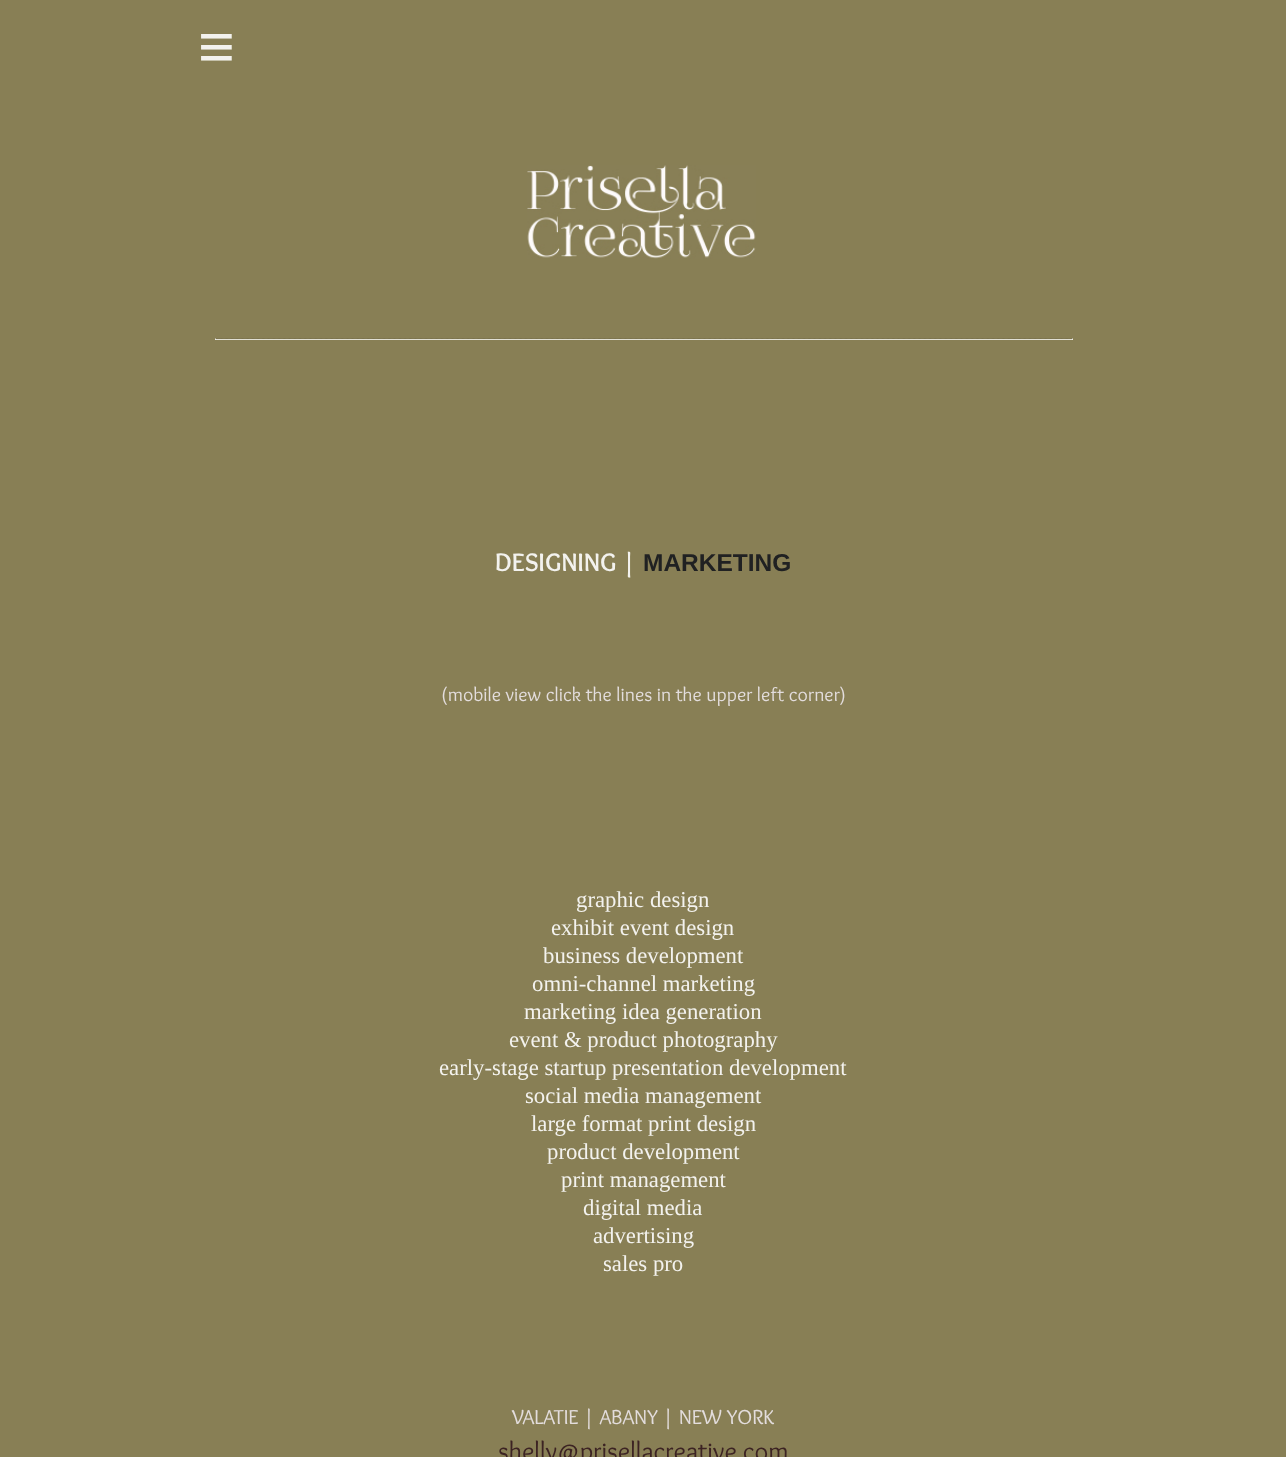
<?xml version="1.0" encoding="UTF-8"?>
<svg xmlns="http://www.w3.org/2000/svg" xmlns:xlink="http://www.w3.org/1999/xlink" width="1286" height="1457">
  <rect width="100%" height="100%" fill="#887f55" />
  <image x="527" y="165" width="229" height="94" xlink:href="image1.png" />
  <rect x="215" y="338" width="858" height="2" fill="#ffffff" />
  <image x="215" y="338" width="858" height="2" xlink:href="image2.png" />
  <image x="215" y="338" width="858" height="1" xlink:href="image3.png" />
  <text x="198" y="68" style="font-family: Liberation Sans; font-size: 63px; letter-spacing: 18px; fill: #f3f2ee">≡</text>
  <text x="495" y="571" style="font-family: Overlock; font-size: 26.25px; font-weight: bold; fill: #f3f2ee">DESIGNING |</text>
  <text x="643" y="571" style="font-family: Liberation Sans; font-size: 24.5px; font-weight: bold; fill: #202122">MARKETING</text>
  <text x="441" y="701" style="font-family: Overlock; font-size: 19.7px; fill: #e3dddd">(mobile view click the lines in the upper left corner)</text>
  <text x="576" y="907" style="font-family: Liberation Serif; font-size: 22.75px; fill: #f3f2ee">graphic design</text>
  <text x="551" y="935" style="font-family: Liberation Serif; font-size: 22.75px; fill: #f3f2ee">exhibit event design</text>
  <text x="543" y="963" style="font-family: Liberation Serif; font-size: 22.75px; fill: #f3f2ee">business development</text>
  <text x="532" y="991" style="font-family: Liberation Serif; font-size: 22.75px; fill: #f3f2ee">omni-channel marketing</text>
  <text x="524" y="1019" style="font-family: Liberation Serif; font-size: 22.75px; fill: #f3f2ee">marketing idea generation</text>
  <text x="509" y="1047" style="font-family: Liberation Serif; font-size: 22.75px; fill: #f3f2ee">event &amp; product photography</text>
  <text x="439" y="1075" style="font-family: Liberation Serif; font-size: 22.75px; fill: #f3f2ee">early-stage startup presentation development</text>
  <text x="525" y="1103" style="font-family: Liberation Serif; font-size: 22.75px; fill: #f3f2ee">social media management</text>
  <text x="531" y="1131" style="font-family: Liberation Serif; font-size: 22.75px; fill: #f3f2ee">large format print design</text>
  <text x="547" y="1159" style="font-family: Liberation Serif; font-size: 22.75px; fill: #f3f2ee">product development</text>
  <text x="561" y="1187" style="font-family: Liberation Serif; font-size: 22.75px; fill: #f3f2ee">print management</text>
  <text x="583" y="1215" style="font-family: Liberation Serif; font-size: 22.75px; fill: #f3f2ee">digital media</text>
  <text x="593" y="1243" style="font-family: Liberation Serif; font-size: 22.75px; fill: #f3f2ee">advertising</text>
  <text x="603" y="1271" style="font-family: Liberation Serif; font-size: 22.75px; fill: #f3f2ee">sales pro</text>
  <text x="512" y="1424" style="font-family: Overlock; font-size: 21px; fill: #e3dddd">VALATIE | ABANY | NEW YORK</text>
  <text x="498" y="1460" style="font-family: Overlock; font-size: 26.25px; fill: #3c2323">shelly@prisellacreative.com</text>
</svg>
